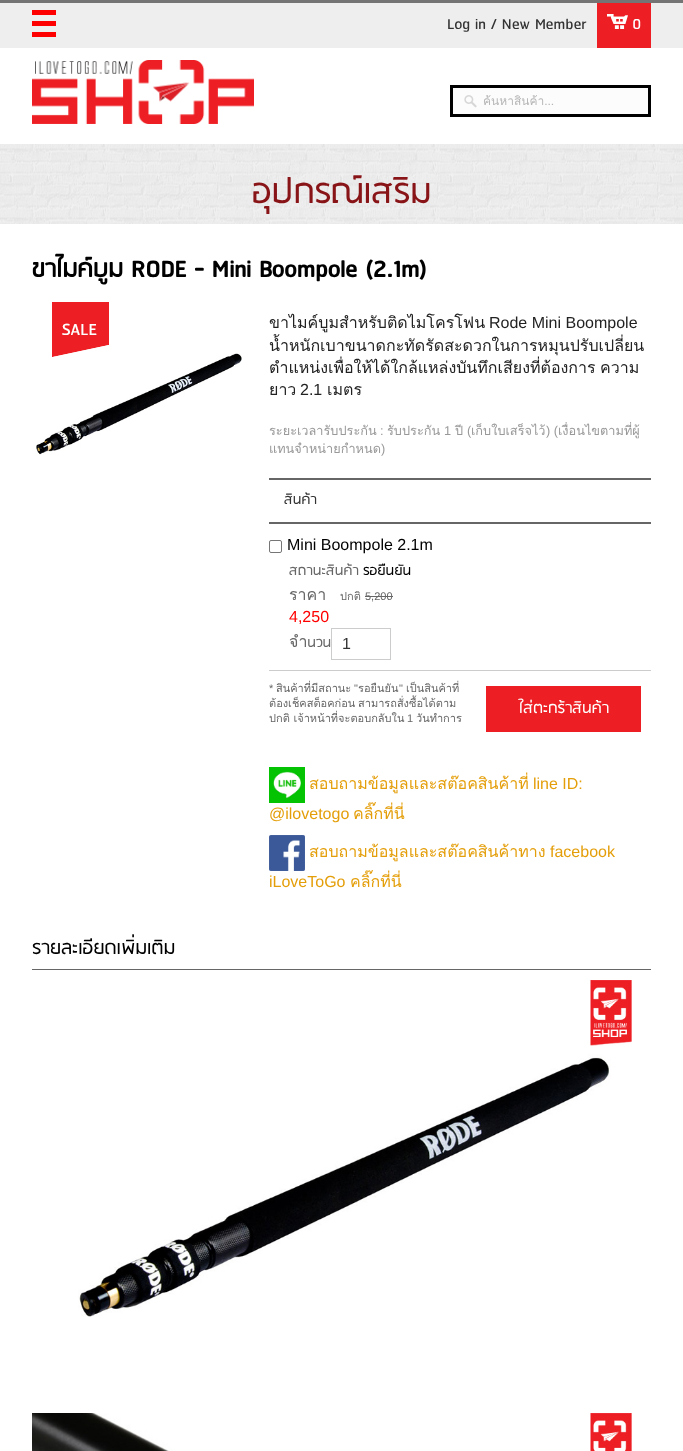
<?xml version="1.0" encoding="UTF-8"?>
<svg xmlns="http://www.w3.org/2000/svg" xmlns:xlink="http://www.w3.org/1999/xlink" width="683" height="1451">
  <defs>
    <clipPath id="clip1"><rect x="483" y="91" width="155" height="19" /></clipPath>
  </defs>
  <rect width="100%" height="100%" fill="#ffffff" />
  <rect y="3" width="683" height="45" fill="#eeeeee" />
  <rect width="683" height="3" fill="#747474" />
  <image x="32" y="10" width="24" height="27" xlink:href="image1.png" />
  <rect x="597" y="3" width="54" height="45" fill="#ed1f24" />
  <image x="607" y="14" width="21" height="15" xlink:href="image2.png" />
  <image x="32" y="60" width="222" height="64" xlink:href="image3.png" />
  <rect x="453" y="88" width="195" height="26" fill="#fcfcfc" />
  <image x="464" y="95" width="13" height="13" xlink:href="image4.png" />
  <rect x="451.5" y="86.5" width="198" height="29" fill="none" stroke="#000000" stroke-width="3" />
  <image x="0" y="144" width="683" height="80" xlink:href="image5.png" />
  <image x="36" y="353" width="206" height="102" xlink:href="image7.png" />
  <image x="52" y="302" width="57" height="55" xlink:href="image6.png" />
  <rect x="269" y="478" width="382" height="2" fill="#666666" />
  <rect x="269" y="522" width="382" height="2" fill="#666666" />
  <rect x="269" y="670" width="382" height="1" fill="#cccccc" />
  <rect x="269.5" y="540.5" width="12" height="12" rx="1.5" fill="none" stroke="#767676" />
  <rect x="365" y="596" width="28" height="1" fill="#666666" />
  <rect x="331.5" y="628.5" width="59" height="31" fill="none" stroke="#cbcdcd" />
  <rect x="486" y="686" width="155" height="46" fill="#ed1f24" />
  <image x="269" y="767" width="36" height="36" xlink:href="image8.png" />
  <image x="269" y="835" width="36" height="36" xlink:href="image9.png" />
  <rect x="32" y="969" width="619" height="1" fill="#666666" />
  <image x="78" y="980" width="554" height="337" xlink:href="image10.png" />
  <image x="32" y="1413" width="600" height="38" xlink:href="image11.png" />
  <text x="447" y="29" style="font-family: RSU; font-size: 18px; fill: #333333">Log in / New Member</text>
  <text x="632" y="29" style="font-family: RSU; font-size: 18px; fill: #ffffff">0</text>
  <g clip-path="url(#clip1)">
    <text x="483" y="105" style="font-family: Loma; font-size: 12px; fill: #b6b6b6">ค้นหาสินค้า...</text>
  </g>
  <text x="252" y="203" style="font-family: RSU; font-size: 40px; fill: #881417">อุปกรณ์เสริม</text>
  <text x="32" y="277" style="font-family: RSU; font-size: 28px; font-weight: bold; fill: #000000">ขาไมค์บูม RODE - Mini Boompole (2.1m)</text>
  <text x="269" y="328" style="font-family: Loma; font-size: 16px; fill: #222222">ขาไมค์บูมสำหรับติดไมโครโฟน</text>
  <text x="489" y="328" style="font-family: Liberation Sans; font-size: 16px; fill: #222222">Rode Mini Boompole</text>
  <text x="269" y="351" style="font-family: Loma; font-size: 16px; fill: #222222">น้ำหนักเบาขนาดกะทัดรัดสะดวกในการหมุนปรับเปลี่ยน</text>
  <text x="269" y="373" word-spacing="-1" style="font-family: Loma; font-size: 16px; fill: #222222">ตำแหน่งเพื่อให้ได้ใกล้แหล่งบันทึกเสียงที่ต้องการ ความ</text>
  <text x="269" y="395" style="font-family: Loma; font-size: 16px; fill: #222222">ยาว</text>
  <text x="300" y="395" style="font-family: Liberation Sans; font-size: 16px; fill: #222222">2.1</text>
  <text x="327" y="395" style="font-family: Loma; font-size: 16px; fill: #222222">เมตร</text>
  <text x="269" y="435" style="font-family: Loma; font-size: 12.75px; fill: #999999">ระยะเวลารับประกัน</text>
  <text x="380" y="435" style="font-family: Liberation Sans; font-size: 12.75px; fill: #999999">:</text>
  <text x="387" y="435" style="font-family: Loma; font-size: 12.75px; fill: #999999">รับประกัน</text>
  <text x="444" y="435" style="font-family: Liberation Sans; font-size: 12.75px; fill: #999999">1</text>
  <text x="455" y="435" style="font-family: Loma; font-size: 12.75px; fill: #999999">ปี</text>
  <text x="467" y="435" style="font-family: Liberation Sans; font-size: 12.75px; fill: #999999">(</text>
  <text x="471" y="435" style="font-family: Loma; font-size: 12.75px; fill: #999999">เก็บใบเสร็จไว้</text>
  <text x="546" y="435" style="font-family: Liberation Sans; font-size: 12.75px; fill: #999999">) (</text>
  <text x="558" y="435" style="font-family: Loma; font-size: 12.75px; fill: #999999">เงื่อนไขตามที่ผู้</text>
  <text x="269" y="453" style="font-family: Loma; font-size: 12.75px; fill: #999999">แทนจำหน่ายกำหนด</text>
  <text x="381" y="453" style="font-family: Liberation Sans; font-size: 12.75px; fill: #999999">)</text>
  <text x="284" y="504" style="font-family: RSU; font-size: 16px; fill: #333333">สินค้า</text>
  <text x="287" y="550" style="font-family: Liberation Sans; font-size: 16px; fill: #000000">Mini Boompole 2.1m</text>
  <text x="289" y="575" style="font-family: RSU; font-size: 16px; fill: #666666">สถานะสินค้า</text>
  <text x="363" y="575" style="font-family: RSU; font-size: 16px; fill: #000000">รอยืนยัน</text>
  <text x="289" y="600" style="font-family: Loma; font-size: 16px; fill: #666666">ราคา</text>
  <text x="340" y="600" style="font-family: Loma; font-size: 11px; fill: #666666">ปกติ</text>
  <text x="365" y="600" style="font-family: Liberation Sans; font-size: 11px; fill: #666666">5,200</text>
  <text x="289" y="622" style="font-family: Liberation Sans; font-size: 16px; fill: #ff0000">4,250</text>
  <text x="289" y="647" style="font-family: RSU; font-size: 16px; fill: #666666">จำนวน</text>
  <text x="342" y="649" style="font-family: Liberation Sans; font-size: 16px; fill: #333333">1</text>
  <text x="358" y="692" style="font-family: Loma; font-size: 11px; fill: #666666">รอยืนยัน</text>
  <text x="406" y="692" style="font-family: Loma; font-size: 11px; fill: #666666">เป็นสินค้าที่</text>
  <text x="269" y="692" style="font-family: Liberation Sans; font-size: 11px; fill: #666666">*</text>
  <text x="276" y="692" style="font-family: Loma; font-size: 11px; fill: #666666">สินค้าที่มีสถานะ</text>
  <text x="354" y="692" style="font-family: Liberation Sans; font-size: 11px; fill: #666666">"</text>
  <text x="399" y="692" style="font-family: Liberation Sans; font-size: 11px; fill: #666666">"</text>
  <text x="269" y="707" word-spacing="-1" style="font-family: Loma; font-size: 11px; fill: #666666">ต้องเช็คสต็อคก่อน สามารถสั่งซื้อได้ตาม</text>
  <text x="269" y="722" style="font-family: Loma; font-size: 11px; fill: #666666">ปกติ เจ้าหน้าที่จะตอบกลับใน</text>
  <text x="407" y="722" style="font-family: Liberation Sans; font-size: 11px; fill: #666666">1</text>
  <text x="416" y="722" style="font-family: Loma; font-size: 11px; fill: #666666">วันทำการ</text>
  <text x="519" y="713" style="font-family: RSU; font-size: 18px; fill: #ffffff">ใส่ตะกร้าสินค้า</text>
  <text x="309" y="789" style="font-family: Loma; font-size: 16px; fill: #e49e09">สอบถามข้อมูลและสต๊อคสินค้าที่</text>
  <text x="533" y="789" style="font-family: Liberation Sans; font-size: 16px; fill: #e49e09">line ID:</text>
  <text x="269" y="819" style="font-family: Liberation Sans; font-size: 16px; fill: #e49e09">@ilovetogo</text>
  <text x="353" y="819" style="font-family: Loma; font-size: 16px; fill: #e49e09">คลิ๊กที่นี่</text>
  <text x="309" y="857" style="font-family: Loma; font-size: 16px; fill: #e49e09">สอบถามข้อมูลและสต๊อคสินค้าทาง</text>
  <text x="550" y="857" style="font-family: Liberation Sans; font-size: 16px; fill: #e49e09">facebook</text>
  <text x="269" y="887" style="font-family: Liberation Sans; font-size: 16px; fill: #e49e09">iLoveToGo</text>
  <text x="350" y="887" style="font-family: Loma; font-size: 16px; fill: #e49e09">คลิ๊กที่นี่</text>
  <text x="32" y="954" style="font-family: RSU; font-size: 22px; fill: #000000">รายละเอียดเพิ่มเติม</text>
</svg>
